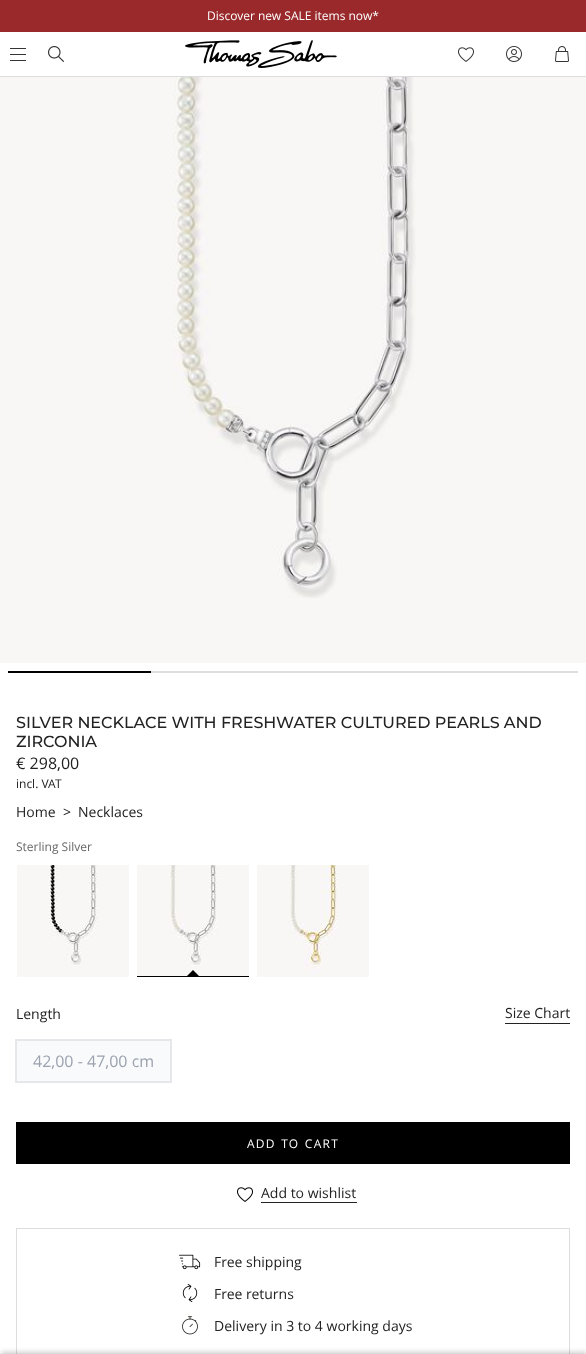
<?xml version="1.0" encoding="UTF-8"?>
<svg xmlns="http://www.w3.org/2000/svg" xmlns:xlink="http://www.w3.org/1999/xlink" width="586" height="1354">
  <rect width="100%" height="100%" fill="#ffffff" />
  <rect y="76" width="586" height="1" fill="#dddddd" />
  <rect width="586" height="32" fill="#9a292b" />
  <rect x="10" y="48" width="16" height="1" fill="#343434" />
  <rect x="10" y="54" width="16" height="1" fill="#343434" />
  <rect x="10" y="60" width="16" height="1" fill="#343434" />
  <image x="48" y="46" width="16" height="16" xlink:href="image1.png" />
  <image x="185" y="40" width="152" height="28" xlink:href="image2.png" />
  <image x="458" y="47" width="16" height="15" xlink:href="image3.png" />
  <image x="506" y="46" width="16" height="16" xlink:href="image4.png" />
  <image x="555" y="46" width="14" height="16" xlink:href="image5.png" />
  <rect y="77" width="586" height="586" fill="#f9f7f5" />
  <image x="173" y="77" width="243" height="521" xlink:href="image6.png" />
  <rect x="8" y="671" width="143" height="2" fill="#000000" />
  <rect x="151" y="671" width="427" height="2" fill="#dedede" />
  <rect x="17" y="865" width="112" height="112" fill="#f9f7f5" />
  <image x="49" y="865" width="48" height="102" xlink:href="image7.png" />
  <rect x="137" y="865" width="112" height="111" fill="#f9f7f5" />
  <image x="169" y="865" width="48" height="102" xlink:href="image8.png" />
  <rect x="137" y="976" width="112" height="1" fill="#000000" />
  <path d="M 200 977 h -14 l 7 -7 z" fill="#000000" />
  <rect x="257" y="865" width="112" height="112" fill="#f9f7f5" />
  <image x="289" y="865" width="48" height="112" xlink:href="image9.png" />
  <rect x="505" y="1023" width="65" height="1" fill="#222222" />
  <rect x="16.5" y="1040.5" width="154" height="41" fill="#f9fafb" stroke="#e5e7eb" />
  <rect x="15.5" y="1039.5" width="156" height="43" fill="none" stroke="#e5e7eb" />
  <rect x="16" y="1122" width="554" height="42" fill="#000000" />
  <rect x="16.5" y="1228.5" width="553" height="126" fill="none" stroke="#dddddd" />
  <rect x="1" y="1352" width="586" height="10" fill="#000000" fill-opacity="0.2" filter="blur(2.5px)" />
  <rect x="261" y="1202" width="96" height="1" fill="#222222" />
  <image x="237" y="1187" width="16" height="15" xlink:href="image10.png" />
  <image x="179" y="1254" width="22" height="16" xlink:href="image11.png" />
  <image x="182" y="1284" width="16" height="18" xlink:href="image12.png" />
  <image x="182" y="1316" width="16" height="19" xlink:href="image13.png" />
  <text x="207" y="20" style="font-family: Open Sans; font-size: 12px; fill: #ffffff">Discover new SALE items now*</text>
  <text x="16" y="728" style="font-family: Montserrat; font-size: 16px; font-weight: 100; fill: #222222">SILVER NECKLACE WITH FRESHWATER CULTURED PEARLS AND</text>
  <text x="16" y="747" style="font-family: Montserrat; font-size: 16px; font-weight: 100; fill: #222222">ZIRCONIA</text>
  <text x="16" y="769" style="font-family: Open Sans; font-size: 16px; fill: #222222">€ 298,00</text>
  <text x="16" y="788" style="font-family: Open Sans; font-size: 12px; fill: #222222">incl. VAT</text>
  <text x="16" y="817" style="font-family: Open Sans; font-size: 14px; fill: #222222">Home</text>
  <text x="63" y="817" style="font-family: Open Sans; font-size: 14px; fill: #222222">&gt;</text>
  <text x="78" y="817" style="font-family: Open Sans; font-size: 14px; fill: #222222">Necklaces</text>
  <text x="16" y="851" style="font-family: Open Sans; font-size: 12px; fill: #666666">Sterling Silver</text>
  <text x="16" y="1019" style="font-family: Open Sans; font-size: 14px; fill: #222222">Length</text>
  <text x="505" y="1018" style="font-family: Open Sans; font-size: 14px; fill: #222222">Size Chart</text>
  <text x="33" y="1067" style="font-family: Open Sans; font-size: 16px; fill: #9ca3af">42,00 - 47,00 cm</text>
  <text x="247" y="1148" word-spacing="1" style="font-family: Open Sans; font-size: 12px; letter-spacing: 1.25px; fill: #ffffff">ADD TO CART</text>
  <text x="261" y="1198" style="font-family: Open Sans; font-size: 14px; fill: #222222">Add to wishlist</text>
  <text x="214" y="1267" style="font-family: Open Sans; font-size: 14px; fill: #222222">Free shipping</text>
  <text x="214" y="1299" style="font-family: Open Sans; font-size: 14px; fill: #222222">Free returns</text>
  <text x="214" y="1331" style="font-family: Open Sans; font-size: 14px; fill: #222222">Delivery in 3 to 4 working days</text>
</svg>
